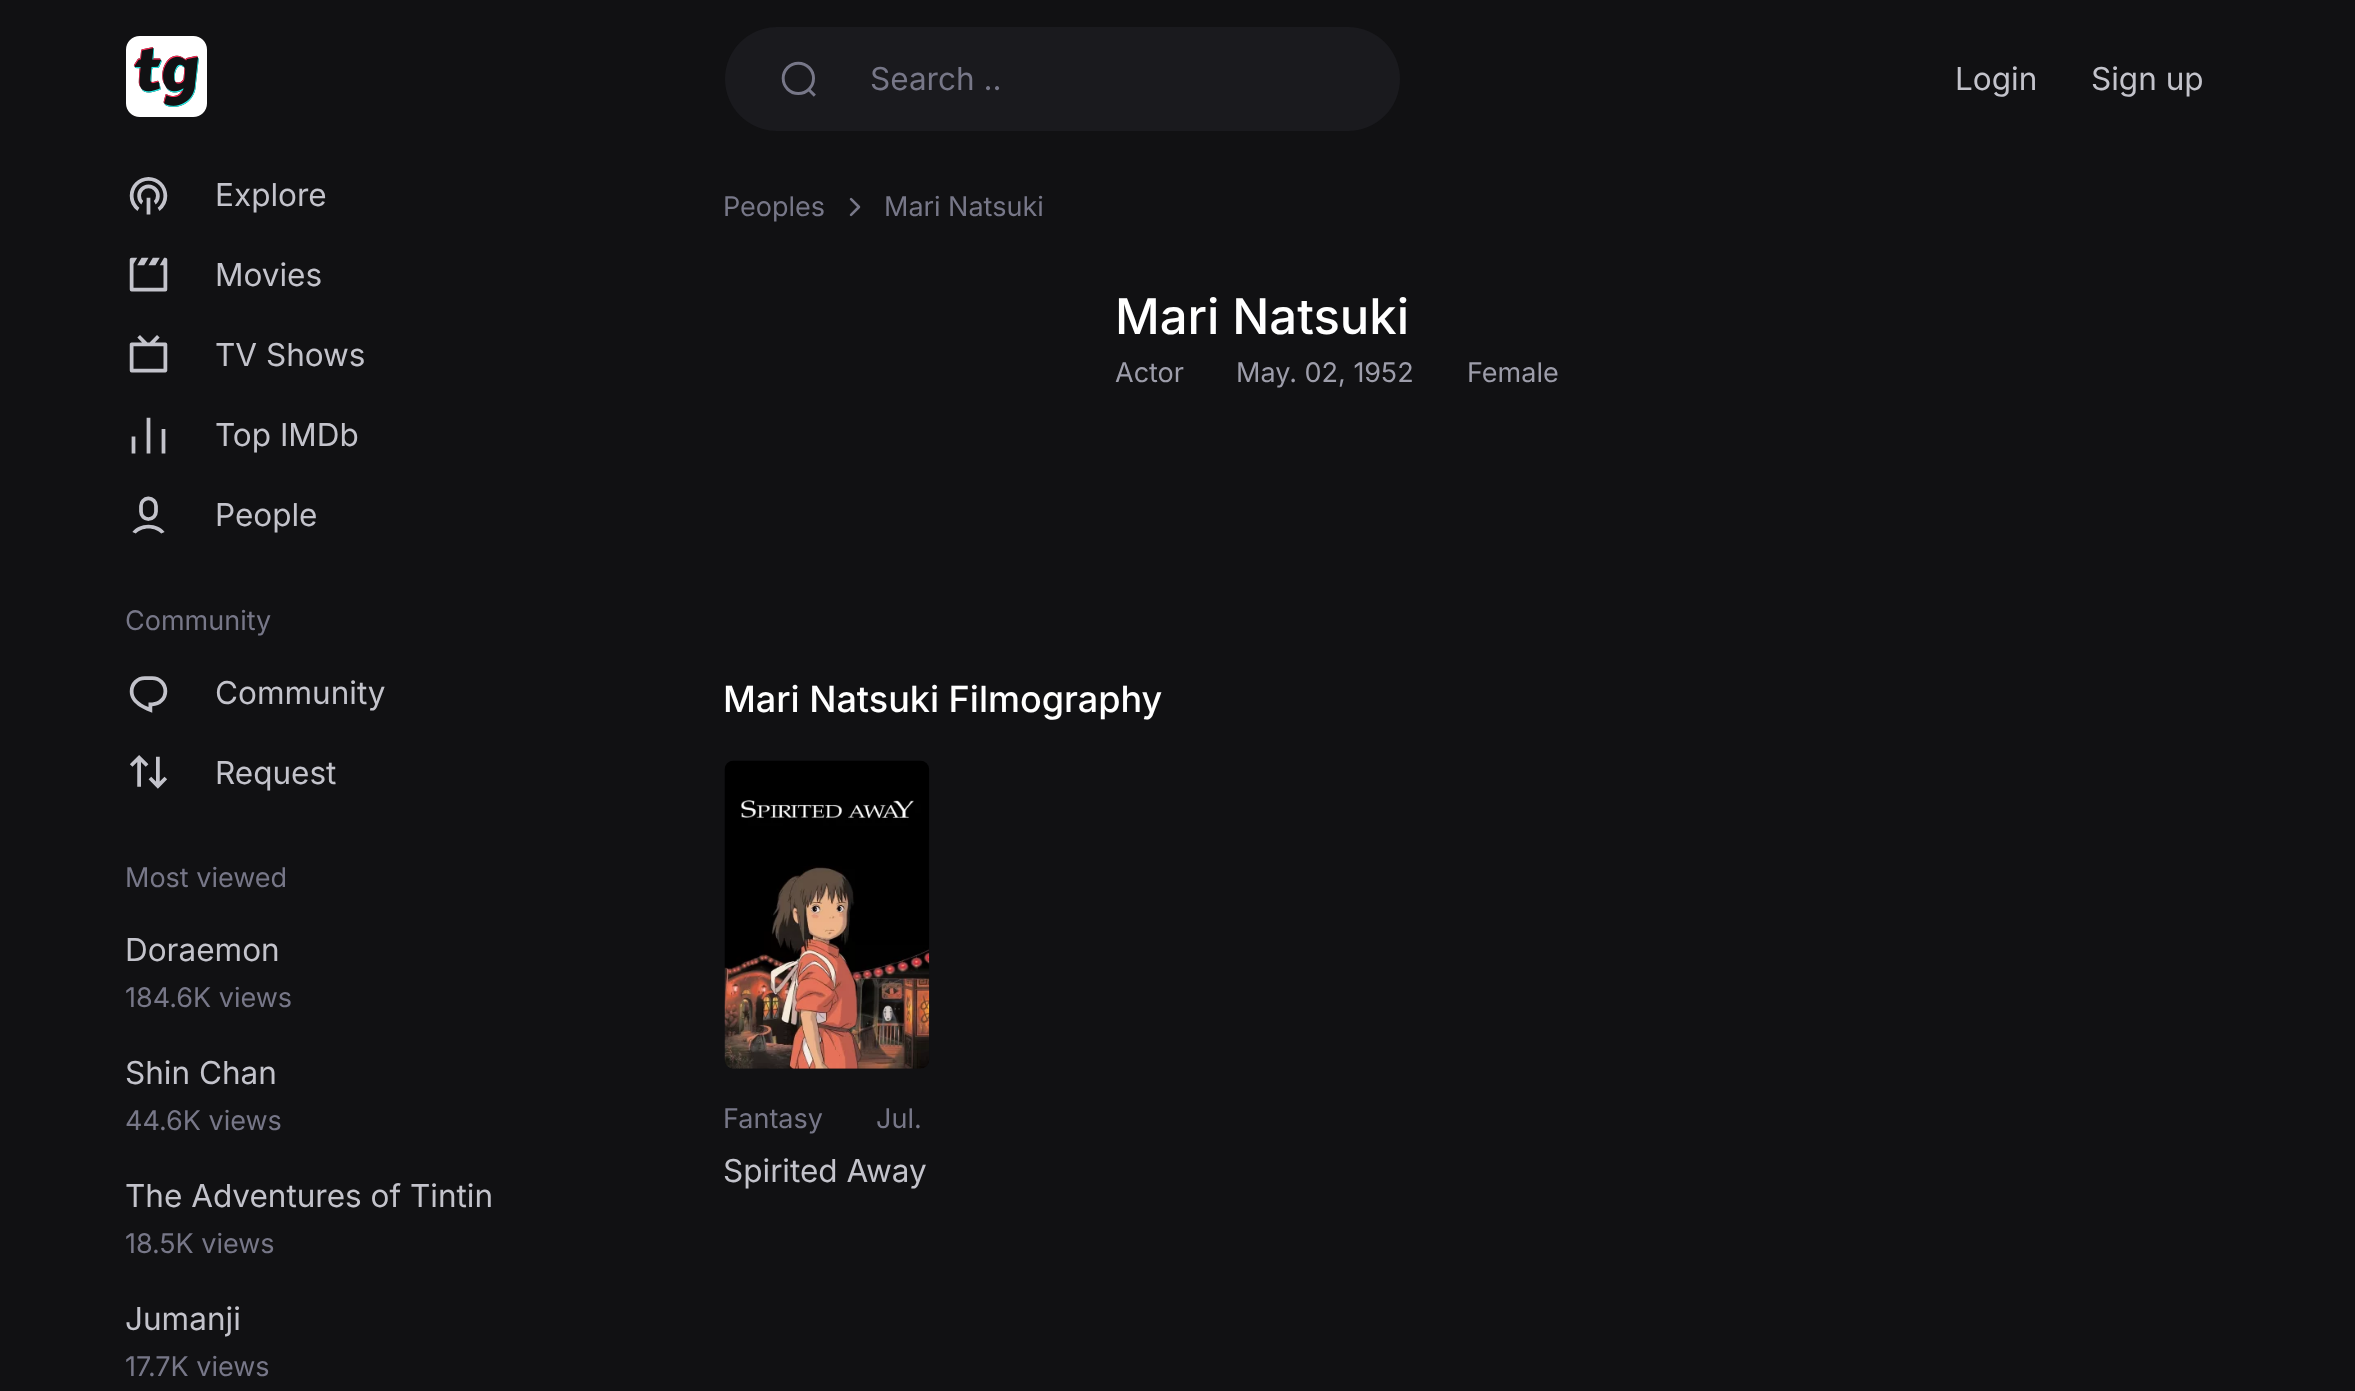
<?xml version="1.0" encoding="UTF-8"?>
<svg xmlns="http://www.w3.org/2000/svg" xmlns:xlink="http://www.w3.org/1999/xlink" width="2355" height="1391">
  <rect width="100%" height="100%" fill="#111113" />
  <image x="126" y="36" width="81" height="81" xlink:href="image1.png" />
  <image x="129" y="177" width="39" height="38" xlink:href="image2.png" />
  <image x="129" y="257" width="39" height="35" xlink:href="image3.png" />
  <image x="129" y="335" width="39" height="38" xlink:href="image4.png" />
  <image x="131" y="417" width="35" height="37" xlink:href="image5.png" />
  <image x="132" y="496" width="33" height="38" xlink:href="image6.png" />
  <image x="129" y="676" width="39" height="37" xlink:href="image7.png" />
  <image x="130" y="755" width="37" height="34" xlink:href="image8.png" />
  <rect x="725" y="27" width="675" height="104" rx="52" fill="#1a1a1e" />
  <image x="781" y="61" width="35" height="36" xlink:href="image9.png" />
  <image x="849" y="197" width="12" height="20" xlink:href="image10.png" />
  <image x="724" y="760" width="206" height="309" xlink:href="image11.png" />
  <text x="215" y="206" style="font-family: Inter; font-size: 31.5px; fill: #c3c3cb">Explore</text>
  <text x="215" y="286" style="font-family: Inter; font-size: 31.5px; fill: #c3c3cb">Movies</text>
  <text x="215" y="366" style="font-family: Inter; font-size: 31.5px; fill: #c3c3cb">TV Shows</text>
  <text x="215" y="446" style="font-family: Inter; font-size: 31.5px; fill: #c3c3cb">Top IMDb</text>
  <text x="215" y="526" style="font-family: Inter; font-size: 31.5px; fill: #c3c3cb">People</text>
  <text x="125" y="630" style="font-family: Inter; font-size: 27px; fill: #777788">Community</text>
  <text x="215" y="704" style="font-family: Inter; font-size: 31.5px; fill: #c3c3cb">Community</text>
  <text x="215" y="784" style="font-family: Inter; font-size: 31.5px; fill: #c3c3cb">Request</text>
  <text x="125" y="887" style="font-family: Inter; font-size: 27px; fill: #777788">Most viewed</text>
  <text x="125" y="961" style="font-family: Inter; font-size: 31.5px; fill: #c3c3cb">Doraemon</text>
  <text x="125" y="1007" style="font-family: Inter; font-size: 27px; fill: #777788">184.6K views</text>
  <text x="125" y="1084" style="font-family: Inter; font-size: 31.5px; fill: #c3c3cb">Shin Chan</text>
  <text x="125" y="1130" style="font-family: Inter; font-size: 27px; fill: #777788">44.6K views</text>
  <text x="125" y="1207" style="font-family: Inter; font-size: 31.5px; fill: #c3c3cb">The Adventures of Tintin</text>
  <text x="125" y="1253" style="font-family: Inter; font-size: 27px; fill: #777788">18.5K views</text>
  <text x="125" y="1330" style="font-family: Inter; font-size: 31.5px; fill: #c3c3cb">Jumanji</text>
  <text x="125" y="1376" style="font-family: Inter; font-size: 27px; fill: #777788">17.7K views</text>
  <text x="870" y="90" style="font-family: Inter; font-size: 31.5px; fill: #777788">Search ..</text>
  <text x="1955" y="90" style="font-family: Inter; font-size: 31.5px; fill: #c3c3cb">Login</text>
  <text x="2091" y="90" style="font-family: Inter; font-size: 31.5px; fill: #c3c3cb">Sign up</text>
  <text x="723" y="216" style="font-family: Inter; font-size: 27px; fill: #777788">Peoples</text>
  <text x="884" y="216" style="font-family: Inter; font-size: 27px; fill: #777788">Mari Natsuki</text>
  <text x="1115" y="334" style="font-family: Inter; font-size: 49px; font-weight: 500; fill: #ffffff">Mari Natsuki</text>
  <text x="1115" y="382" style="font-family: Inter; font-size: 27px; fill: #9d9daa">Actor</text>
  <text x="1236" y="382" style="font-family: Inter; font-size: 27px; fill: #9d9daa">May. 02, 1952</text>
  <text x="1467" y="382" style="font-family: Inter; font-size: 27px; fill: #9d9daa">Female</text>
  <text x="723" y="712" style="font-family: Inter; font-size: 36px; font-weight: 500; fill: #ffffff">Mari Natsuki Filmography</text>
  <text x="723" y="1128" style="font-family: Inter; font-size: 27px; fill: #777788">Fantasy</text>
  <text x="876" y="1128" style="font-family: Inter; font-size: 27px; fill: #777788">Jul.</text>
  <text x="723" y="1182" style="font-family: Inter; font-size: 31.5px; fill: #c3c3cb">Spirited Away</text>
</svg>
